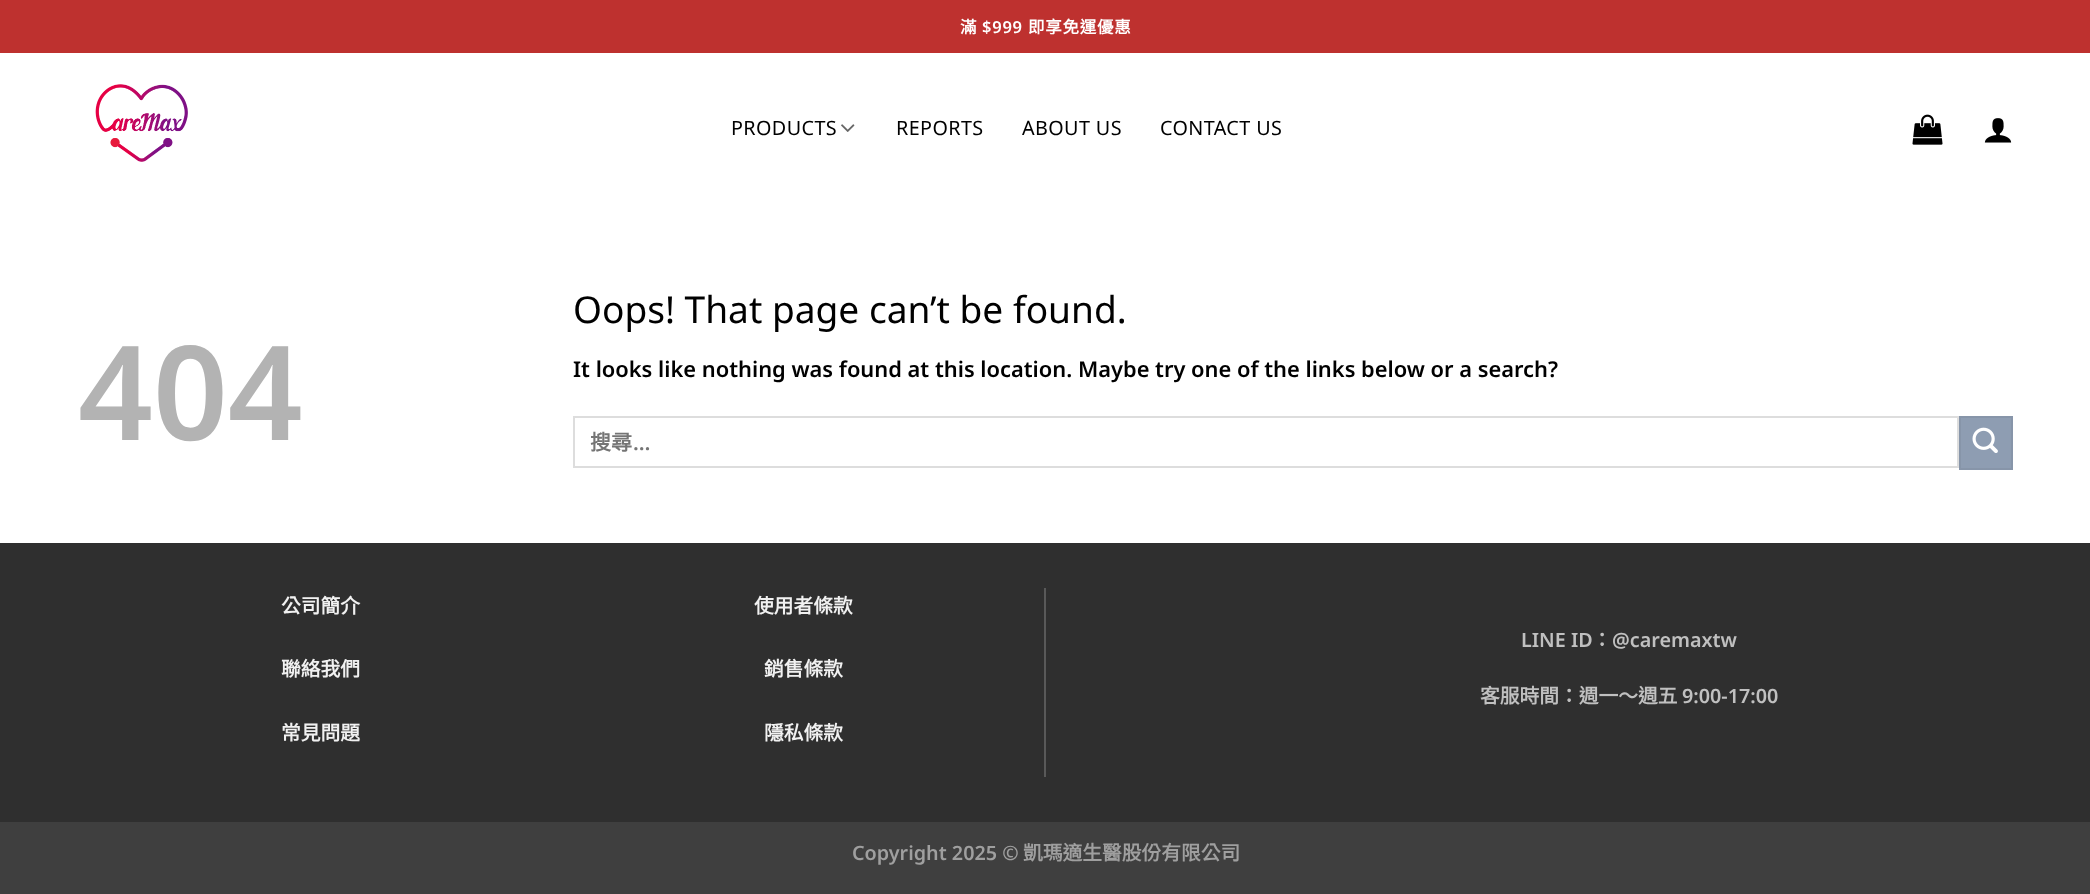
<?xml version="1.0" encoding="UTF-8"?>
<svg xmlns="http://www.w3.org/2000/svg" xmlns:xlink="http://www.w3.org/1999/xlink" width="2090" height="894">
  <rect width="100%" height="100%" fill="#3f3f3f" />
  <rect y="53" width="2090" height="490" fill="#ffffff" />
  <rect width="2090" height="53" fill="#be312f" />
  <image x="95" y="84" width="93" height="78" xlink:href="image1.png" />
  <image x="841" y="124" width="14" height="8" xlink:href="image2.png" />
  <image x="1912" y="114" width="31" height="31" xlink:href="image3.png" />
  <image x="1984" y="118" width="28" height="25" xlink:href="image4.png" />
  <rect x="574" y="417" width="1384" height="50" fill="none" stroke="#dddddd" stroke-width="2" />
  <rect x="1960" y="417" width="52" height="52" fill="#8e9db2" stroke="#8795a9" stroke-width="2" />
  <image x="1972" y="427" width="26" height="26" xlink:href="image5.png" />
  <rect y="543" width="2090" height="279" fill="#2f2f2f" />
  <rect x="1044" y="588" width="2" height="189" fill="#595959" />
  <text x="960" y="33" style="font-family: Noto Sans CJK TC; font-size: 16.5px; font-weight: bold; letter-spacing: 0.75px; fill: #ffffff">滿</text>
  <text x="982" y="33" style="font-family: Noto Sans; font-size: 16.5px; font-weight: 600; letter-spacing: 0.75px; fill: #ffffff">$999</text>
  <text x="1028" y="33" style="font-family: Noto Sans CJK TC; font-size: 16.5px; font-weight: bold; letter-spacing: 0.75px; fill: #ffffff">即享免運優惠</text>
  <text x="731" y="135" style="font-family: Noto Sans; font-size: 19.75px; letter-spacing: 0.4px; fill: #000000">PRODUCTS</text>
  <text x="896" y="135" style="font-family: Noto Sans; font-size: 19.75px; letter-spacing: 0.4px; fill: #000000">REPORTS</text>
  <text x="1022" y="135" style="font-family: Noto Sans; font-size: 19.75px; letter-spacing: 0.4px; fill: #000000">ABOUT US</text>
  <text x="1160" y="135" style="font-family: Noto Sans; font-size: 19.75px; letter-spacing: 0.4px; fill: #000000">CONTACT US</text>
  <text x="78" y="440" style="font-family: Noto Sans; font-size: 131px; font-weight: 600; fill: #b3b3b3">404</text>
  <text x="573" y="323" style="font-family: Noto Sans; font-size: 37.1px; fill: #000000">Oops! That page can’t be found.</text>
  <text x="573" y="377" style="font-family: Noto Sans; font-size: 21.85px; font-weight: 600; fill: #000000">It looks like nothing was found at this location. Maybe try one of the links below or a search?</text>
  <text x="590" y="450" style="font-family: Noto Sans CJK TC; font-size: 21px; font-weight: bold; fill: #757575">搜尋</text>
  <text x="633" y="450" style="font-family: Noto Sans; font-size: 21px; font-weight: 600; fill: #757575">…</text>
  <text x="281" y="613" style="font-family: Noto Sans CJK TC; font-size: 19.75px; font-weight: bold; fill: #f1f1f1">公司簡介</text>
  <text x="281" y="676" style="font-family: Noto Sans CJK TC; font-size: 19.75px; font-weight: bold; fill: #f1f1f1">聯絡我們</text>
  <text x="281" y="740" style="font-family: Noto Sans CJK TC; font-size: 19.75px; font-weight: bold; fill: #f1f1f1">常見問題</text>
  <text x="754" y="613" style="font-family: Noto Sans CJK TC; font-size: 19.75px; font-weight: bold; fill: #f1f1f1">使用者條款</text>
  <text x="764" y="676" style="font-family: Noto Sans CJK TC; font-size: 19.75px; font-weight: bold; fill: #f1f1f1">銷售條款</text>
  <text x="764" y="740" style="font-family: Noto Sans CJK TC; font-size: 19.75px; font-weight: bold; fill: #f1f1f1">隱私條款</text>
  <text x="1521" y="647" style="font-family: Noto Sans; font-size: 19.75px; font-weight: 600; fill: #c0c0c0">LINE ID</text>
  <text x="1592" y="647" style="font-family: Noto Sans CJK TC; font-size: 19.75px; font-weight: bold; fill: #c0c0c0">：</text>
  <text x="1612" y="647" style="font-family: Noto Sans; font-size: 19.75px; font-weight: 600; fill: #c0c0c0">@caremaxtw</text>
  <text x="1480" y="703" style="font-family: Noto Sans CJK TC; font-size: 19.75px; font-weight: bold; fill: #c0c0c0">客服時間：週一～週五</text>
  <text x="1682" y="703" style="font-family: Noto Sans; font-size: 19.75px; font-weight: 600; fill: #c0c0c0">9:00-17:00</text>
  <text x="852" y="860" style="font-family: Noto Sans; font-size: 19.75px; font-weight: 600; fill: #9f9f9f">Copyright 2025 ©</text>
  <text x="1023" y="860" style="font-family: Noto Sans CJK TC; font-size: 19.75px; font-weight: bold; fill: #9f9f9f">凱瑪適生醫股份有限公司</text>
</svg>
